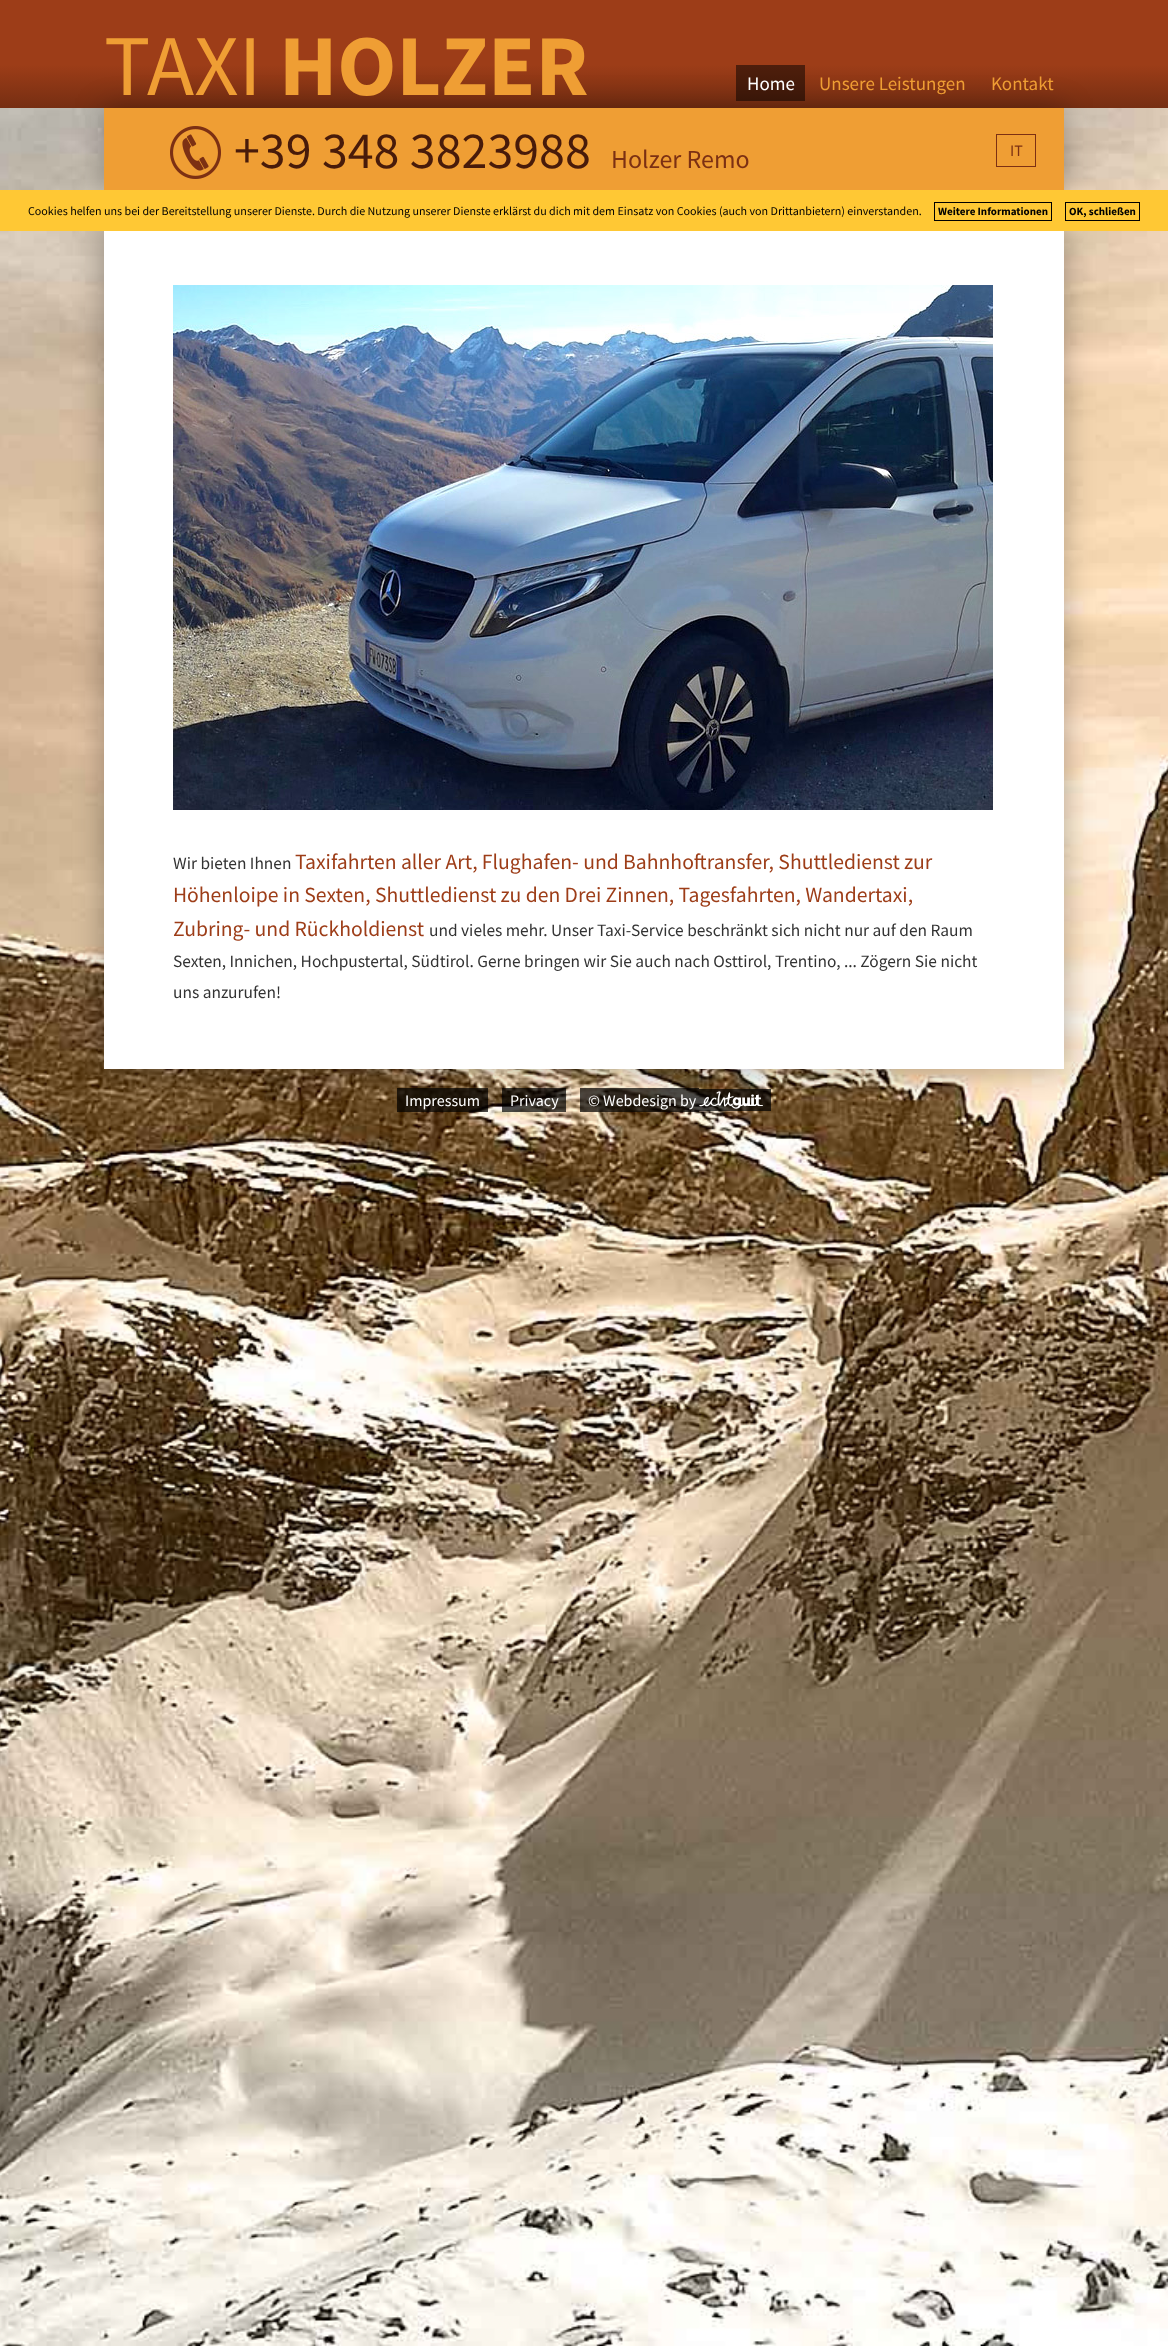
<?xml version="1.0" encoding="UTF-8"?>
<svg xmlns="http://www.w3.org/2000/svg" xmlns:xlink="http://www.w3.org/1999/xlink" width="1168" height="2346">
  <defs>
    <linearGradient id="g1" gradientUnits="userSpaceOnUse" x1="584" y1="0" x2="584" y2="108"><stop offset="0.6" stop-color="#9d3d18" /><stop offset="1" stop-color="#762e12" /></linearGradient>
  </defs>
  <rect width="100%" height="100%" fill="#ffffff" />
  <image x="0" y="108" width="1168" height="2238" xlink:href="image1.png" />
  <rect width="1168" height="108" fill="url(#g1)" />
  <rect x="104" y="108" width="960" height="82" fill="#000000" fill-opacity="0.3" filter="blur(15px)" />
  <rect x="736" y="65" width="69" height="36" fill="#000000" fill-opacity="0.5" />
  <rect x="104" y="108" width="960" height="82" fill="#ef9e34" />
  <rect x="996.5" y="134.5" width="39" height="32" fill="none" stroke="#7c3013" />
  <image x="170" y="126" width="51" height="53" xlink:href="image2.png" />
  <rect x="104" y="225" width="960" height="844" fill="#000000" fill-opacity="0.3" filter="blur(15px)" />
  <rect x="104" y="231" width="960" height="838" fill="#ffffff" />
  <image x="173" y="285" width="820" height="525" xlink:href="image3.png" />
  <rect x="397" y="1088" width="91" height="24" fill="#000000" fill-opacity="0.7" />
  <rect x="502" y="1088" width="64" height="24" fill="#000000" fill-opacity="0.7" />
  <rect x="580" y="1088" width="119" height="24" fill="#000000" fill-opacity="0.7" />
  <rect x="699" y="1089" width="72" height="22" fill="#000000" fill-opacity="0.7" />
  <image x="699" y="1091" width="64" height="18" xlink:href="image4.png" />
  <rect y="190" width="1168" height="41" fill="#ffc834" />
  <rect x="934.5" y="202.5" width="117" height="18" fill="none" stroke="#000000" />
  <rect x="1065.5" y="202.5" width="74" height="18" fill="none" stroke="#000000" />
  <text x="104" y="95" style="font-family: Source Sans Pro; font-size: 86.5px; fill: #ef9e34">TAXI</text>
  <text x="279" y="95" style="font-family: Source Sans Pro; font-size: 86.5px; font-weight: bold; fill: #ef9e34">HOLZER</text>
  <text x="747" y="90" style="font-family: Source Sans Pro; font-size: 19px; fill: #ffffff">Home</text>
  <text x="819" y="90" style="font-family: Source Sans Pro; font-size: 19px; fill: #ef9e34">Unsere Leistungen</text>
  <text x="991" y="90" style="font-family: Source Sans Pro; font-size: 19px; fill: #ef9e34">Kontakt</text>
  <text x="1010" y="156" style="font-family: Source Sans Pro; font-size: 16px; fill: #7c3013">IT</text>
  <text x="234" y="168" style="font-family: Source Sans Pro; font-size: 52px; fill: #481b0a">+39 348 3823988</text>
  <text x="611" y="168" style="font-family: Source Sans Pro; font-size: 26px; fill: #7c3013">Holzer Remo</text>
  <text x="173" y="869" style="font-family: Source Sans Pro; font-size: 17.35px; fill: #333333">Wir bieten Ihnen</text>
  <text x="295" y="869" style="font-family: Source Sans Pro; font-size: 21.65px; fill: #9d3d18">Taxifahrten aller Art, Flughafen- und Bahnhoftransfer, Shuttledienst zur</text>
  <text x="173" y="902" style="font-family: Source Sans Pro; font-size: 21.65px; fill: #9d3d18">Höhenloipe in Sexten, Shuttledienst zu den Drei Zinnen, Tagesfahrten, Wandertaxi,</text>
  <text x="173" y="936" style="font-family: Source Sans Pro; font-size: 21.65px; fill: #9d3d18">Zubring- und Rückholdienst</text>
  <text x="429" y="936" style="font-family: Source Sans Pro; font-size: 17.35px; fill: #333333">und vieles mehr. Unser Taxi-Service beschränkt sich nicht nur auf den Raum</text>
  <text x="173" y="967" style="font-family: Source Sans Pro; font-size: 17.35px; fill: #333333">Sexten, Innichen, Hochpustertal, Südtirol. Gerne bringen wir Sie auch nach Osttirol, Trentino, ... Zögern Sie nicht</text>
  <text x="173" y="998" style="font-family: Source Sans Pro; font-size: 17.35px; fill: #333333">uns anzurufen!</text>
  <text x="405" y="1106" style="font-family: Source Sans Pro; font-size: 16px; fill: #ffffff">Impressum</text>
  <text x="510" y="1106" style="font-family: Source Sans Pro; font-size: 16px; fill: #ffffff">Privacy</text>
  <text x="588" y="1106" style="font-family: Source Sans Pro; font-size: 16px; fill: #ffffff">© Webdesign by</text>
  <text x="28" y="215" style="font-family: Source Sans Pro; font-size: 12px; fill: #000000">Cookies helfen uns bei der Bereitstellung unserer Dienste. Durch die Nutzung unserer Dienste erklärst du dich mit dem Einsatz von Cookies (auch von Drittanbietern) einverstanden.</text>
  <text x="938" y="215" style="font-family: Source Sans Pro; font-size: 11px; font-weight: bold; fill: #000000">Weitere Informationen</text>
  <text x="1069" y="215" style="font-family: Source Sans Pro; font-size: 11px; font-weight: bold; fill: #000000">OK, schließen</text>
</svg>
